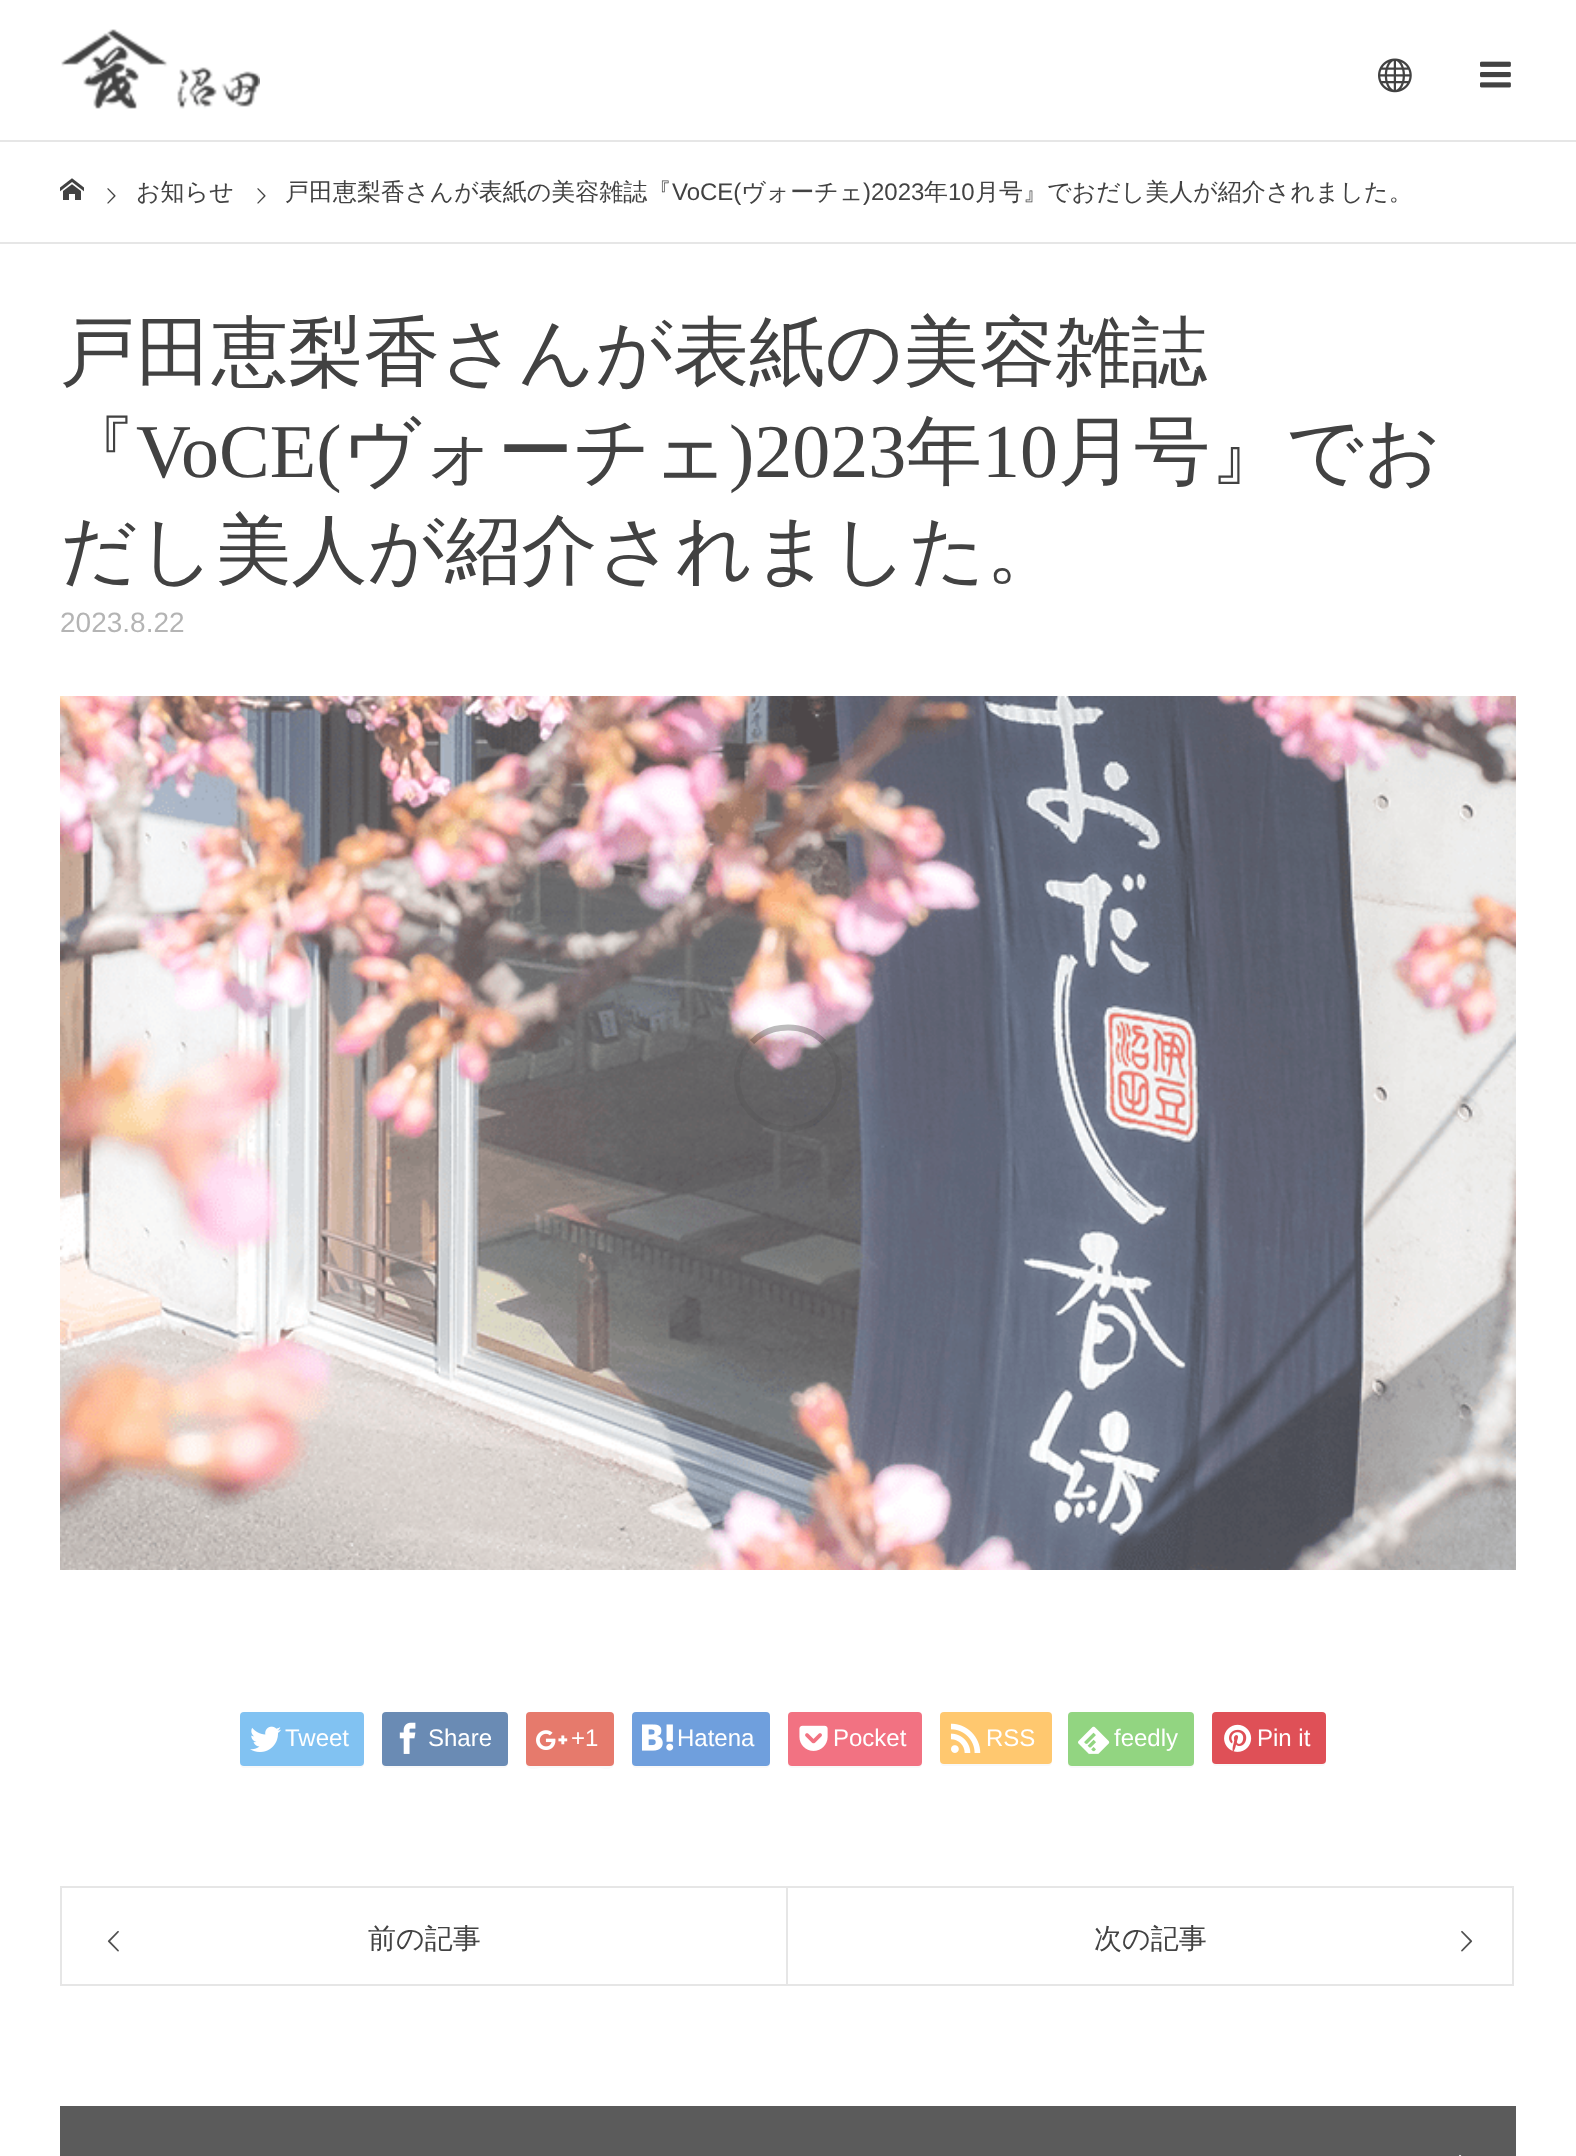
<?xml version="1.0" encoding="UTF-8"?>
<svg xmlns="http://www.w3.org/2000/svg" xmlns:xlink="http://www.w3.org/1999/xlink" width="1576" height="2156">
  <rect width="100%" height="100%" fill="#ffffff" />
  <image x="61" y="29" width="199" height="80" xlink:href="image1.png" />
  <image x="1378" y="58" width="34" height="35" xlink:href="image2.png" />
  <image x="1480" y="61" width="31" height="27" xlink:href="image3.png" />
  <rect y="140" width="1576" height="2" fill="#e6e6e6" />
  <rect y="242" width="1576" height="2" fill="#e6e6e6" />
  <image x="60" y="178" width="24" height="22" xlink:href="image4.png" />
  <image x="107" y="188" width="9" height="16" xlink:href="image5.png" />
  <image x="257" y="188" width="9" height="16" xlink:href="image5.png" />
  <image x="60" y="696" width="1456" height="874" xlink:href="image6.png" />
  <path d="M 240 1762 v 2 c 0 2 2 4 4 4 h 116 c 2 0 4 -2 4 -4 v -2 c 0 2 -2 4 -4 4 h -116 c -2 0 -4 -2 -4 -4 z" fill="#f9f9f9" />
  <rect x="240" y="1712" width="124" height="54" rx="4" fill="#81c2f2" />
  <image x="250" y="1726" width="31" height="26" xlink:href="image7.png" />
  <path d="M 382 1762 v 2 c 0 2 2 4 4 4 h 118 c 2 0 4 -2 4 -4 v -2 c 0 2 -2 4 -4 4 h -118 c -2 0 -4 -2 -4 -4 z" fill="#f9f9f9" />
  <rect x="382" y="1712" width="126" height="54" rx="4" fill="#6a8bb4" />
  <image x="399" y="1722" width="17" height="32" xlink:href="image8.png" />
  <path d="M 526 1762 c 0 10 9 6 17 6 h 54 c 8 0 17 4 17 -6 c 0 2 -2 4 -4 4 h -80 c -2 0 -4 -2 -4 -4 z" fill="#f9f9f9" />
  <rect x="526" y="1712" width="88" height="54" rx="4" fill="#e67a6c" />
  <image x="536" y="1730" width="32" height="20" xlink:href="image9.png" />
  <path d="M 632 1762 v 2 c 0 2 2 4 4 4 h 130 c 2 0 4 -2 4 -4 v -2 c 0 2 -2 4 -4 4 h -130 c -2 0 -4 -2 -4 -4 z" fill="#f9f9f9" />
  <rect x="632" y="1712" width="138" height="54" rx="4" fill="#6f9fdd" />
  <image x="642" y="1724" width="32" height="27" xlink:href="image10.png" />
  <path d="M 788 1762 v 2 c 0 2 2 4 4 4 h 126 c 2 0 4 -2 4 -4 v -2 c 0 2 -2 4 -4 4 h -126 c -2 0 -4 -2 -4 -4 z" fill="#f9f9f9" />
  <rect x="788" y="1712" width="134" height="54" rx="4" fill="#f27282" />
  <image x="799" y="1725" width="29" height="26" xlink:href="image11.png" />
  <path d="M 940 1760 v 2 c 0 2 2 4 4 4 h 104 c 2 0 4 -2 4 -4 v -2 c 0 2 -2 4 -4 4 h -104 c -2 0 -4 -2 -4 -4 z" fill="#f9f9f9" />
  <rect x="940" y="1712" width="112" height="52" rx="4" fill="#ffc86f" />
  <image x="950" y="1723" width="31" height="30" xlink:href="image12.png" />
  <path d="M 1068 1762 v 2 c 0 2 2 4 4 4 h 118 c 2 0 4 -2 4 -4 v -2 c 0 2 -2 4 -4 4 h -118 c -2 0 -4 -2 -4 -4 z" fill="#f9f9f9" />
  <rect x="1068" y="1712" width="126" height="54" rx="4" fill="#92d581" />
  <image x="1078" y="1726" width="32" height="28" xlink:href="image13.png" />
  <path d="M 1212 1760 v 2 c 0 2 2 4 4 4 h 106 c 2 0 4 -2 4 -4 v -2 c 0 2 -2 4 -4 4 h -106 c -2 0 -4 -2 -4 -4 z" fill="#f9f9f9" />
  <rect x="1212" y="1712" width="114" height="52" rx="4" fill="#df5057" />
  <image x="1224" y="1724" width="28" height="28" xlink:href="image14.png" />
  <rect x="61" y="1887" width="726" height="98" fill="none" stroke="#e6e6e6" stroke-width="2" />
  <image x="107" y="1930" width="12" height="22" xlink:href="image15.png" />
  <rect x="787" y="1887" width="726" height="98" fill="none" stroke="#e6e6e6" stroke-width="2" />
  <image x="1461" y="1930" width="12" height="22" xlink:href="image16.png" />
  <rect x="60" y="2106" width="1456" height="50" fill="#5b5b5b" />
  <image x="1459" y="2154" width="3" height="2" xlink:href="image17.png" />
  <path d="M 752 1042 c 19.5 -19.5 52.5 -19.5 72 0" fill="none" stroke="#000000" stroke-opacity="0.26" stroke-width="6" />
  <path d="M 824 1042 c 12 12 17.5 29.5 14 46 c -2 10 -7 19 -14 26 c -32 32 -87 9 -87 -36 c 0 -13.5 5.5 -26.5 15 -36" fill="none" stroke="#000000" stroke-opacity="0.05" stroke-width="6" />
  <text x="136" y="200" style="font-family: WenQuanYi Zen Hei; font-size: 24px; font-weight: 500; fill: #424242">お知らせ</text>
  <text x="285" y="200" style="font-family: WenQuanYi Zen Hei; font-size: 24px; font-weight: 500; fill: #424242">戸田恵梨香さんが表紙の美容雑誌『</text>
  <text x="672" y="200" style="font-family: Liberation Sans; font-size: 24px; fill: #424242">VoCE(</text>
  <text x="741" y="200" style="font-family: WenQuanYi Zen Hei; font-size: 24px; font-weight: 500; fill: #424242">ヴォーチェ</text>
  <text x="863" y="200" style="font-family: Liberation Sans; font-size: 24px; fill: #424242">)2023</text>
  <text x="924" y="200" style="font-family: WenQuanYi Zen Hei; font-size: 24px; font-weight: 500; fill: #424242">年</text>
  <text x="948" y="200" style="font-family: Liberation Sans; font-size: 24px; fill: #424242">10</text>
  <text x="975" y="200" style="font-family: WenQuanYi Zen Hei; font-size: 24px; font-weight: 500; fill: #424242">月号』でおだし美人が紹介されました。</text>
  <text x="60" y="378" style="font-family: WenQuanYi Zen Hei; font-size: 76px; font-weight: 500; fill: #424242">戸田恵梨香さんが表紙の美容雑誌</text>
  <text x="60" y="477" style="font-family: WenQuanYi Zen Hei; font-size: 76px; font-weight: 500; fill: #424242">『</text>
  <text x="136" y="477" style="font-family: Liberation Serif; font-size: 76px; fill: #424242">VoCE(</text>
  <text x="342" y="477" style="font-family: WenQuanYi Zen Hei; font-size: 76px; font-weight: 500; fill: #424242">ヴォーチェ</text>
  <text x="729" y="477" style="font-family: Liberation Serif; font-size: 76px; fill: #424242">)2023</text>
  <text x="906" y="477" style="font-family: WenQuanYi Zen Hei; font-size: 76px; font-weight: 500; fill: #424242">年</text>
  <text x="982" y="477" style="font-family: Liberation Serif; font-size: 76px; fill: #424242">10</text>
  <text x="1058" y="477" style="font-family: WenQuanYi Zen Hei; font-size: 76px; font-weight: 500; fill: #424242">月号』でお</text>
  <text x="60" y="576" style="font-family: WenQuanYi Zen Hei; font-size: 76px; font-weight: 500; fill: #424242">だし美人が紹介されました。</text>
  <text x="60" y="632" style="font-family: Liberation Sans; font-size: 28px; fill: #b4b4b4">2023.8.22</text>
  <text x="285" y="1746" style="font-family: Liberation Sans; font-size: 24px; fill: #ffffff">Tweet</text>
  <text x="428" y="1746" style="font-family: Liberation Sans; font-size: 24px; fill: #ffffff">Share</text>
  <text x="571" y="1746" style="font-family: Liberation Sans; font-size: 24px; fill: #ffffff">+1</text>
  <text x="677" y="1746" style="font-family: Liberation Sans; font-size: 24px; fill: #ffffff">Hatena</text>
  <text x="833" y="1746" style="font-family: Liberation Sans; font-size: 24px; fill: #ffffff">Pocket</text>
  <text x="986" y="1746" style="font-family: Liberation Sans; font-size: 24px; fill: #ffffff">RSS</text>
  <text x="1114" y="1746" style="font-family: Liberation Sans; font-size: 24px; fill: #ffffff">feedly</text>
  <text x="1257" y="1746" style="font-family: Liberation Sans; font-size: 24px; fill: #ffffff">Pin it</text>
  <text x="368" y="1948" style="font-family: WenQuanYi Zen Hei; font-size: 28px; font-weight: 500; fill: #424242">前の記事</text>
  <text x="1094" y="1948" style="font-family: WenQuanYi Zen Hei; font-size: 28px; font-weight: 500; fill: #424242">次の記事</text>
</svg>
